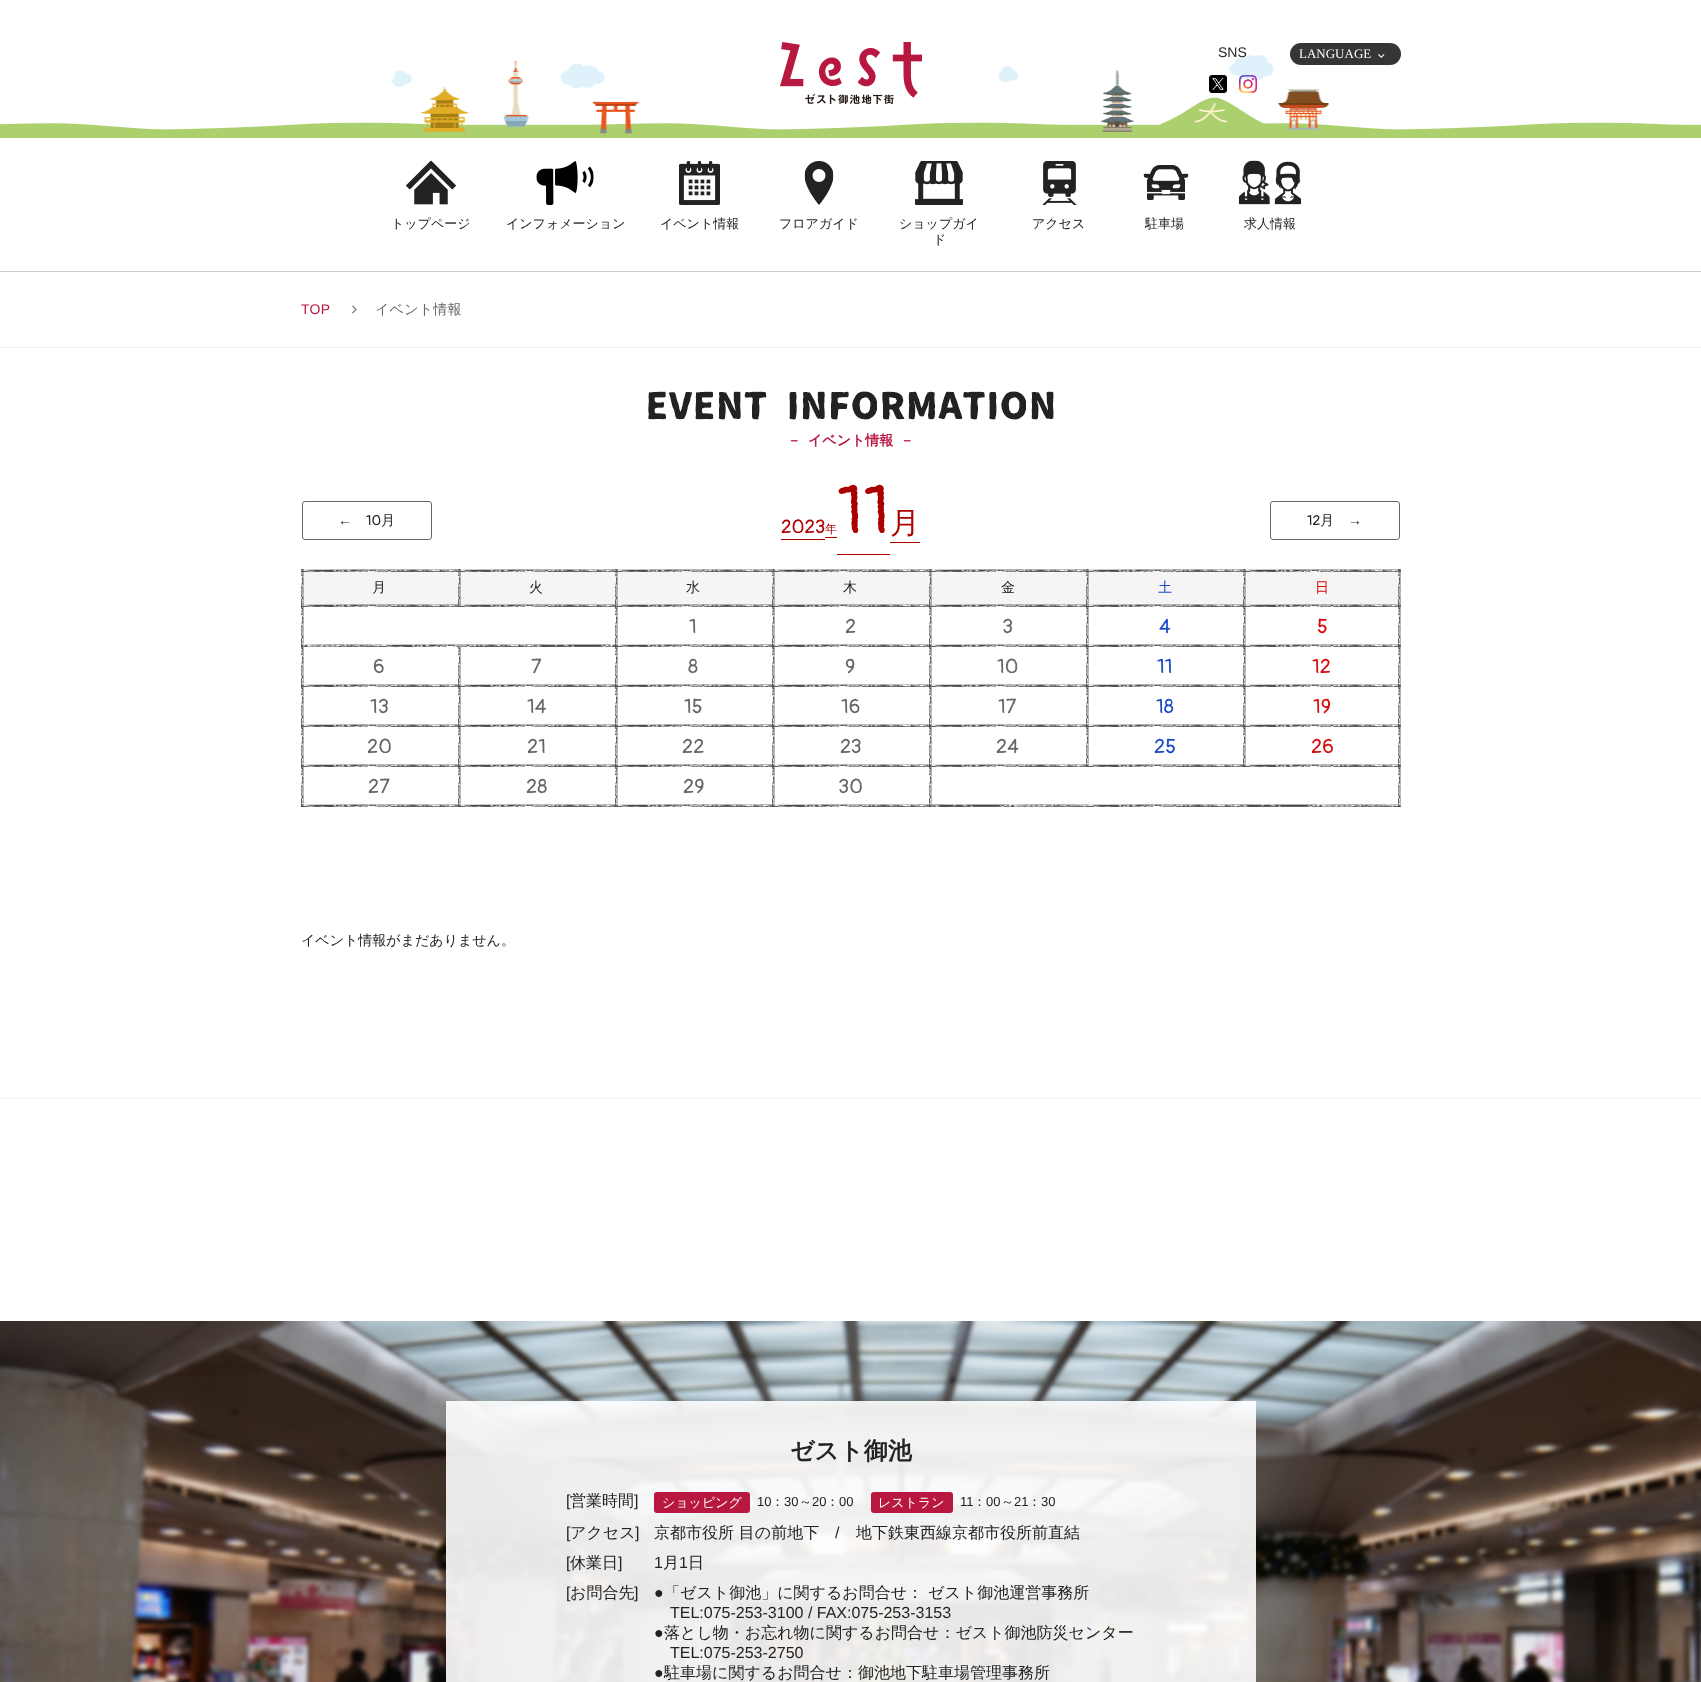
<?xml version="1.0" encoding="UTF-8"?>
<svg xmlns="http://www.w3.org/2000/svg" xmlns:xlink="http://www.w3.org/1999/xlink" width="1701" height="1682">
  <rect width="100%" height="100%" fill="#ffffff" />
  <image x="0" y="55" width="1701" height="83" xlink:href="image1.png" />
  <image x="780" y="42" width="142" height="62" xlink:href="image2.png" />
  <image x="1209" y="75" width="18" height="18" xlink:href="image3.png" />
  <image x="1239" y="75" width="18" height="18" xlink:href="image4.png" />
  <rect x="1290" y="43" width="111" height="22" rx="11" fill="#353535" />
  <image x="1378" y="54" width="7" height="4" xlink:href="image5.png" />
  <rect y="271" width="1701" height="1" fill="#cccccc" />
  <image x="406" y="160" width="50" height="45" xlink:href="image6.png" />
  <image x="536" y="161" width="58" height="44" xlink:href="image7.png" />
  <image x="679" y="161" width="41" height="44" xlink:href="image8.png" />
  <image x="804" y="161" width="30" height="44" xlink:href="image9.png" />
  <image x="915" y="161" width="48" height="44" xlink:href="image10.png" />
  <image x="1042" y="161" width="35" height="44" xlink:href="image11.png" />
  <image x="1143" y="165" width="46" height="35" xlink:href="image12.png" />
  <image x="1238" y="160" width="64" height="45" xlink:href="image13.png" />
  <rect y="347" width="1701" height="1" fill="#f2f2f2" />
  <image x="352" y="305" width="5" height="9" xlink:href="image14.png" />
  <image x="648" y="391" width="406" height="29" xlink:href="image15.png" />
  <rect x="781" y="539" width="44" height="1" fill="#aa0000" />
  <rect x="825" y="537" width="12" height="1" fill="#aa0000" />
  <rect x="837" y="554" width="53" height="1" fill="#aa0000" />
  <rect x="890" y="542" width="30" height="1" fill="#aa0000" />
  <rect x="301" y="569" width="1100" height="38" fill="#f5f5f5" />
  <image x="301" y="569" width="157" height="38" xlink:href="image16.png" />
  <image x="458" y="569" width="157" height="38" xlink:href="image16.png" />
  <image x="615" y="569" width="157" height="38" xlink:href="image16.png" />
  <image x="772" y="569" width="157" height="38" xlink:href="image16.png" />
  <image x="929" y="569" width="157" height="38" xlink:href="image16.png" />
  <image x="1086" y="569" width="157" height="38" xlink:href="image16.png" />
  <image x="1243" y="569" width="158" height="38" xlink:href="image17.png" />
  <image x="301" y="607" width="314" height="40" xlink:href="image18.png" />
  <image x="615" y="607" width="157" height="40" xlink:href="image19.png" />
  <image x="772" y="607" width="157" height="40" xlink:href="image19.png" />
  <image x="929" y="607" width="157" height="40" xlink:href="image19.png" />
  <image x="1086" y="607" width="157" height="40" xlink:href="image19.png" />
  <image x="1243" y="607" width="158" height="40" xlink:href="image20.png" />
  <image x="301" y="647" width="157" height="40" xlink:href="image19.png" />
  <image x="458" y="647" width="157" height="40" xlink:href="image19.png" />
  <image x="615" y="647" width="157" height="40" xlink:href="image19.png" />
  <image x="772" y="647" width="157" height="40" xlink:href="image19.png" />
  <image x="929" y="647" width="157" height="40" xlink:href="image19.png" />
  <image x="1086" y="647" width="157" height="40" xlink:href="image19.png" />
  <image x="1243" y="647" width="158" height="40" xlink:href="image20.png" />
  <image x="301" y="687" width="157" height="40" xlink:href="image19.png" />
  <image x="458" y="687" width="157" height="40" xlink:href="image19.png" />
  <image x="615" y="687" width="157" height="40" xlink:href="image19.png" />
  <image x="772" y="687" width="157" height="40" xlink:href="image19.png" />
  <image x="929" y="687" width="157" height="40" xlink:href="image19.png" />
  <image x="1086" y="687" width="157" height="40" xlink:href="image19.png" />
  <image x="1243" y="687" width="158" height="40" xlink:href="image20.png" />
  <image x="301" y="727" width="157" height="40" xlink:href="image19.png" />
  <image x="458" y="727" width="157" height="40" xlink:href="image19.png" />
  <image x="615" y="727" width="157" height="40" xlink:href="image19.png" />
  <image x="772" y="727" width="157" height="40" xlink:href="image19.png" />
  <image x="929" y="727" width="157" height="40" xlink:href="image19.png" />
  <image x="1086" y="727" width="157" height="40" xlink:href="image19.png" />
  <image x="1243" y="727" width="158" height="40" xlink:href="image20.png" />
  <image x="301" y="767" width="157" height="40" xlink:href="image19.png" />
  <image x="458" y="767" width="157" height="40" xlink:href="image19.png" />
  <image x="615" y="767" width="157" height="40" xlink:href="image19.png" />
  <image x="772" y="767" width="157" height="40" xlink:href="image19.png" />
  <image x="929" y="767" width="472" height="40" xlink:href="image21.png" />
  <rect x="302.5" y="501.5" width="129" height="38" rx="2.5" fill="none" stroke="#666666" />
  <rect x="1270.5" y="501.5" width="129" height="38" rx="2.5" fill="none" stroke="#666666" />
  <rect y="1098" width="1701" height="1" fill="#f2f2f2" />
  <image x="0" y="1321" width="1701" height="361" xlink:href="image22.png" />
  <rect x="446" y="1401" width="810" height="281" fill="#ffffff" fill-opacity="0.9" />
  <rect x="654" y="1492" width="96" height="21" rx="3" fill="#b8183f" />
  <rect x="871" y="1492" width="82" height="21" rx="3" fill="#b8183f" />
  <text x="1218" y="57" style="font-family: Liberation Sans; font-size: 14px; fill: #222222">SNS</text>
  <text x="1299" y="58" style="font-family: Liberation Serif; font-size: 13px; fill: #ffffff">LANGUAGE</text>
  <text x="391" y="228" style="font-family: WenQuanYi Zen Hei; font-size: 13px; font-weight: 500; fill: #222222">トップページ</text>
  <text x="506" y="228" style="font-family: WenQuanYi Zen Hei; font-size: 13px; font-weight: 500; fill: #222222">インフォメーション</text>
  <text x="660" y="228" style="font-family: WenQuanYi Zen Hei; font-size: 13px; font-weight: 500; fill: #222222">イベント情報</text>
  <text x="779" y="228" style="font-family: WenQuanYi Zen Hei; font-size: 13px; font-weight: 500; fill: #222222">フロアガイド</text>
  <text x="899" y="228" style="font-family: WenQuanYi Zen Hei; font-size: 13px; font-weight: 500; fill: #222222">ショップガイ</text>
  <text x="933" y="244" style="font-family: WenQuanYi Zen Hei; font-size: 13px; font-weight: 500; fill: #222222">ド</text>
  <text x="1032" y="228" style="font-family: WenQuanYi Zen Hei; font-size: 13px; font-weight: 500; fill: #222222">アクセス</text>
  <text x="1145" y="228" style="font-family: WenQuanYi Zen Hei; font-size: 13px; font-weight: 500; fill: #222222">駐車場</text>
  <text x="1244" y="228" style="font-family: WenQuanYi Zen Hei; font-size: 13px; font-weight: 500; fill: #222222">求人情報</text>
  <text x="301" y="314" style="font-family: Liberation Sans; font-size: 14px; letter-spacing: 0.25px; fill: #b8183f">TOP</text>
  <text x="375" y="314" style="font-family: WenQuanYi Zen Hei; font-size: 14px; font-weight: 500; letter-spacing: 0.25px; fill: #666666">イベント情報</text>
  <text x="787" y="445" style="font-family: WenQuanYi Zen Hei; font-size: 14px; font-weight: bold; fill: #b8183f">－</text>
  <text x="808" y="445" style="font-family: WenQuanYi Zen Hei; font-size: 14px; font-weight: bold; fill: #b8183f">イベント情報</text>
  <text x="900" y="445" style="font-family: WenQuanYi Zen Hei; font-size: 14px; font-weight: bold; fill: #b8183f">－</text>
  <text x="781" y="533" style="font-family: Pangolin; font-size: 19px; fill: #aa0000">2023</text>
  <text x="825" y="533" style="font-family: WenQuanYi Zen Hei; font-size: 12px; font-weight: 500; fill: #aa0000">年</text>
  <text x="837" y="533" style="font-family: Pangolin; font-size: 68px; fill: #aa0000">11</text>
  <text x="890" y="533" style="font-family: WenQuanYi Zen Hei; font-size: 30px; font-weight: 500; fill: #aa0000">月</text>
  <text x="372" y="592" style="font-family: WenQuanYi Zen Hei; font-size: 14px; font-weight: 500; fill: #222222">月</text>
  <text x="529" y="592" style="font-family: WenQuanYi Zen Hei; font-size: 14px; font-weight: 500; fill: #222222">火</text>
  <text x="686" y="592" style="font-family: WenQuanYi Zen Hei; font-size: 14px; font-weight: 500; fill: #222222">水</text>
  <text x="843" y="592" style="font-family: WenQuanYi Zen Hei; font-size: 14px; font-weight: 500; fill: #222222">木</text>
  <text x="1001" y="592" style="font-family: WenQuanYi Zen Hei; font-size: 14px; font-weight: 500; fill: #222222">金</text>
  <text x="1158" y="592" style="font-family: WenQuanYi Zen Hei; font-size: 14px; font-weight: 500; fill: #1a4ac5">土</text>
  <text x="1315" y="592" style="font-family: WenQuanYi Zen Hei; font-size: 14px; font-weight: 500; fill: #d80b0b">日</text>
  <text x="689" y="633" style="font-family: Pangolin; font-size: 20px; fill: #666666">1</text>
  <text x="845" y="633" style="font-family: Pangolin; font-size: 20px; fill: #666666">2</text>
  <text x="1002" y="633" style="font-family: Pangolin; font-size: 20px; fill: #666666">3</text>
  <text x="1159" y="633" style="font-family: Pangolin; font-size: 20px; fill: #1a4ac5">4</text>
  <text x="1317" y="633" style="font-family: Pangolin; font-size: 20px; fill: #d80b0b">5</text>
  <text x="373" y="673" style="font-family: Pangolin; font-size: 20px; fill: #666666">6</text>
  <text x="531" y="673" style="font-family: Pangolin; font-size: 20px; fill: #666666">7</text>
  <text x="688" y="673" style="font-family: Pangolin; font-size: 20px; fill: #666666">8</text>
  <text x="845" y="673" style="font-family: Pangolin; font-size: 20px; fill: #666666">9</text>
  <text x="997" y="673" style="font-family: Pangolin; font-size: 20px; fill: #666666">10</text>
  <text x="1157" y="673" style="font-family: Pangolin; font-size: 20px; fill: #1a4ac5">11</text>
  <text x="1312" y="673" style="font-family: Pangolin; font-size: 20px; fill: #d80b0b">12</text>
  <text x="370" y="713" style="font-family: Pangolin; font-size: 20px; fill: #666666">13</text>
  <text x="527" y="713" style="font-family: Pangolin; font-size: 20px; fill: #666666">14</text>
  <text x="684" y="713" style="font-family: Pangolin; font-size: 20px; fill: #666666">15</text>
  <text x="841" y="713" style="font-family: Pangolin; font-size: 20px; fill: #666666">16</text>
  <text x="998" y="713" style="font-family: Pangolin; font-size: 20px; fill: #666666">17</text>
  <text x="1156" y="713" style="font-family: Pangolin; font-size: 20px; fill: #1a4ac5">18</text>
  <text x="1313" y="713" style="font-family: Pangolin; font-size: 20px; fill: #d80b0b">19</text>
  <text x="367" y="753" style="font-family: Pangolin; font-size: 20px; fill: #666666">20</text>
  <text x="527" y="753" style="font-family: Pangolin; font-size: 20px; fill: #666666">21</text>
  <text x="682" y="753" style="font-family: Pangolin; font-size: 20px; fill: #666666">22</text>
  <text x="840" y="753" style="font-family: Pangolin; font-size: 20px; fill: #666666">23</text>
  <text x="996" y="753" style="font-family: Pangolin; font-size: 20px; fill: #666666">24</text>
  <text x="1154" y="753" style="font-family: Pangolin; font-size: 20px; fill: #1a4ac5">25</text>
  <text x="1311" y="753" style="font-family: Pangolin; font-size: 20px; fill: #d80b0b">26</text>
  <text x="368" y="793" style="font-family: Pangolin; font-size: 20px; fill: #666666">27</text>
  <text x="526" y="793" style="font-family: Pangolin; font-size: 20px; fill: #666666">28</text>
  <text x="683" y="793" style="font-family: Pangolin; font-size: 20px; fill: #666666">29</text>
  <text x="838" y="793" style="font-family: Pangolin; font-size: 20px; fill: #666666">30</text>
  <text x="338" y="525" style="font-family: Liberation Serif; font-size: 14px; fill: #222222">←</text>
  <text x="366" y="525" style="font-family: Pangolin; font-size: 14px; fill: #222222">10</text>
  <text x="381" y="525" style="font-family: WenQuanYi Zen Hei; font-size: 14px; font-weight: 500; fill: #222222">月</text>
  <text x="1307" y="525" style="font-family: Pangolin; font-size: 14px; fill: #222222">12</text>
  <text x="1320" y="525" style="font-family: WenQuanYi Zen Hei; font-size: 14px; font-weight: 500; fill: #222222">月</text>
  <text x="1348" y="525" style="font-family: Liberation Serif; font-size: 14px; fill: #222222">→</text>
  <text x="301" y="945" style="font-family: WenQuanYi Zen Hei; font-size: 14px; font-weight: 500; fill: #222222">イベント情報がまだありません。</text>
  <text x="790" y="1459" style="font-family: WenQuanYi Zen Hei; font-size: 24px; font-weight: bold; fill: #222222">ゼスト御池</text>
  <text x="566" y="1506" style="font-family: Liberation Sans; font-size: 16px; fill: #222222">[</text>
  <text x="570" y="1506" style="font-family: WenQuanYi Zen Hei; font-size: 16px; font-weight: 500; fill: #222222">営業時間</text>
  <text x="634" y="1506" style="font-family: Liberation Sans; font-size: 16px; fill: #222222">]</text>
  <text x="662" y="1507" style="font-family: WenQuanYi Zen Hei; font-size: 13px; font-weight: 500; fill: #ffffff">ショッピング</text>
  <text x="757" y="1506" style="font-family: Liberation Sans; font-size: 13px; fill: #222222">10</text>
  <text x="771" y="1506" style="font-family: WenQuanYi Zen Hei; font-size: 13px; font-weight: 500; fill: #222222">：</text>
  <text x="784" y="1506" style="font-family: Liberation Sans; font-size: 13px; fill: #222222">30</text>
  <text x="799" y="1506" style="font-family: WenQuanYi Zen Hei; font-size: 13px; font-weight: 500; fill: #222222">～</text>
  <text x="812" y="1506" style="font-family: Liberation Sans; font-size: 13px; fill: #222222">20</text>
  <text x="826" y="1506" style="font-family: WenQuanYi Zen Hei; font-size: 13px; font-weight: 500; fill: #222222">：</text>
  <text x="839" y="1506" style="font-family: Liberation Sans; font-size: 13px; fill: #222222">00</text>
  <text x="878" y="1507" style="font-family: WenQuanYi Zen Hei; font-size: 13px; font-weight: 500; fill: #ffffff">レストラン</text>
  <text x="960" y="1506" style="font-family: Liberation Sans; font-size: 13px; fill: #222222">11</text>
  <text x="973" y="1506" style="font-family: WenQuanYi Zen Hei; font-size: 13px; font-weight: 500; fill: #222222">：</text>
  <text x="986" y="1506" style="font-family: Liberation Sans; font-size: 13px; fill: #222222">00</text>
  <text x="1001" y="1506" style="font-family: WenQuanYi Zen Hei; font-size: 13px; font-weight: 500; fill: #222222">～</text>
  <text x="1014" y="1506" style="font-family: Liberation Sans; font-size: 13px; fill: #222222">21</text>
  <text x="1028" y="1506" style="font-family: WenQuanYi Zen Hei; font-size: 13px; font-weight: 500; fill: #222222">：</text>
  <text x="1041" y="1506" style="font-family: Liberation Sans; font-size: 13px; fill: #222222">30</text>
  <text x="566" y="1538" style="font-family: Liberation Sans; font-size: 16px; fill: #222222">[</text>
  <text x="570" y="1538" style="font-family: WenQuanYi Zen Hei; font-size: 16px; font-weight: 500; fill: #222222">アクセス</text>
  <text x="635" y="1538" style="font-family: Liberation Sans; font-size: 16px; fill: #222222">]</text>
  <text x="654" y="1538" style="font-family: WenQuanYi Zen Hei; font-size: 16px; font-weight: 500; fill: #222222">京都市役所 目の前地下</text>
  <text x="835" y="1538" style="font-family: Liberation Sans; font-size: 16px; fill: #222222">/</text>
  <text x="856" y="1538" style="font-family: WenQuanYi Zen Hei; font-size: 16px; font-weight: 500; fill: #222222">地下鉄東西線京都市役所前直結</text>
  <text x="566" y="1568" style="font-family: Liberation Sans; font-size: 16px; fill: #222222">[</text>
  <text x="570" y="1568" style="font-family: WenQuanYi Zen Hei; font-size: 16px; font-weight: 500; fill: #222222">休業日</text>
  <text x="618" y="1568" style="font-family: Liberation Sans; font-size: 16px; fill: #222222">]</text>
  <text x="654" y="1568" style="font-family: Liberation Sans; font-size: 16px; fill: #222222">1</text>
  <text x="663" y="1568" style="font-family: WenQuanYi Zen Hei; font-size: 16px; font-weight: 500; fill: #222222">月</text>
  <text x="679" y="1568" style="font-family: Liberation Sans; font-size: 16px; fill: #222222">1</text>
  <text x="688" y="1568" style="font-family: WenQuanYi Zen Hei; font-size: 16px; font-weight: 500; fill: #222222">日</text>
  <text x="566" y="1598" style="font-family: Liberation Sans; font-size: 16px; fill: #222222">[</text>
  <text x="570" y="1598" style="font-family: WenQuanYi Zen Hei; font-size: 16px; font-weight: 500; fill: #222222">お問合先</text>
  <text x="634" y="1598" style="font-family: Liberation Sans; font-size: 16px; fill: #222222">]</text>
  <text x="654" y="1598" style="font-family: Liberation Sans; font-size: 16px; fill: #222222">●</text>
  <text x="664" y="1598" style="font-family: WenQuanYi Zen Hei; font-size: 16px; font-weight: 500; fill: #222222">「ゼスト御池」に関するお問合せ：</text>
  <text x="928" y="1598" style="font-family: WenQuanYi Zen Hei; font-size: 16px; font-weight: 500; fill: #222222">ゼスト御池運営事務所</text>
  <text x="670" y="1618" style="font-family: Liberation Sans; font-size: 16px; fill: #222222">TEL:075-253-3100 / FAX:075-253-3153</text>
  <text x="654" y="1638" style="font-family: Liberation Sans; font-size: 16px; fill: #222222">●</text>
  <text x="664" y="1638" style="font-family: WenQuanYi Zen Hei; font-size: 16px; font-weight: 500; fill: #222222">落とし物・お忘れ物に関するお問合せ：ゼスト御池防災センター</text>
  <text x="670" y="1658" style="font-family: Liberation Sans; font-size: 16px; fill: #222222">TEL:075-253-2750</text>
  <text x="654" y="1678" style="font-family: Liberation Sans; font-size: 16px; fill: #222222">●</text>
  <text x="664" y="1678" style="font-family: WenQuanYi Zen Hei; font-size: 16px; font-weight: 500; fill: #222222">駐車場に関するお問合せ：御池地下駐車場管理事務所</text>
</svg>
